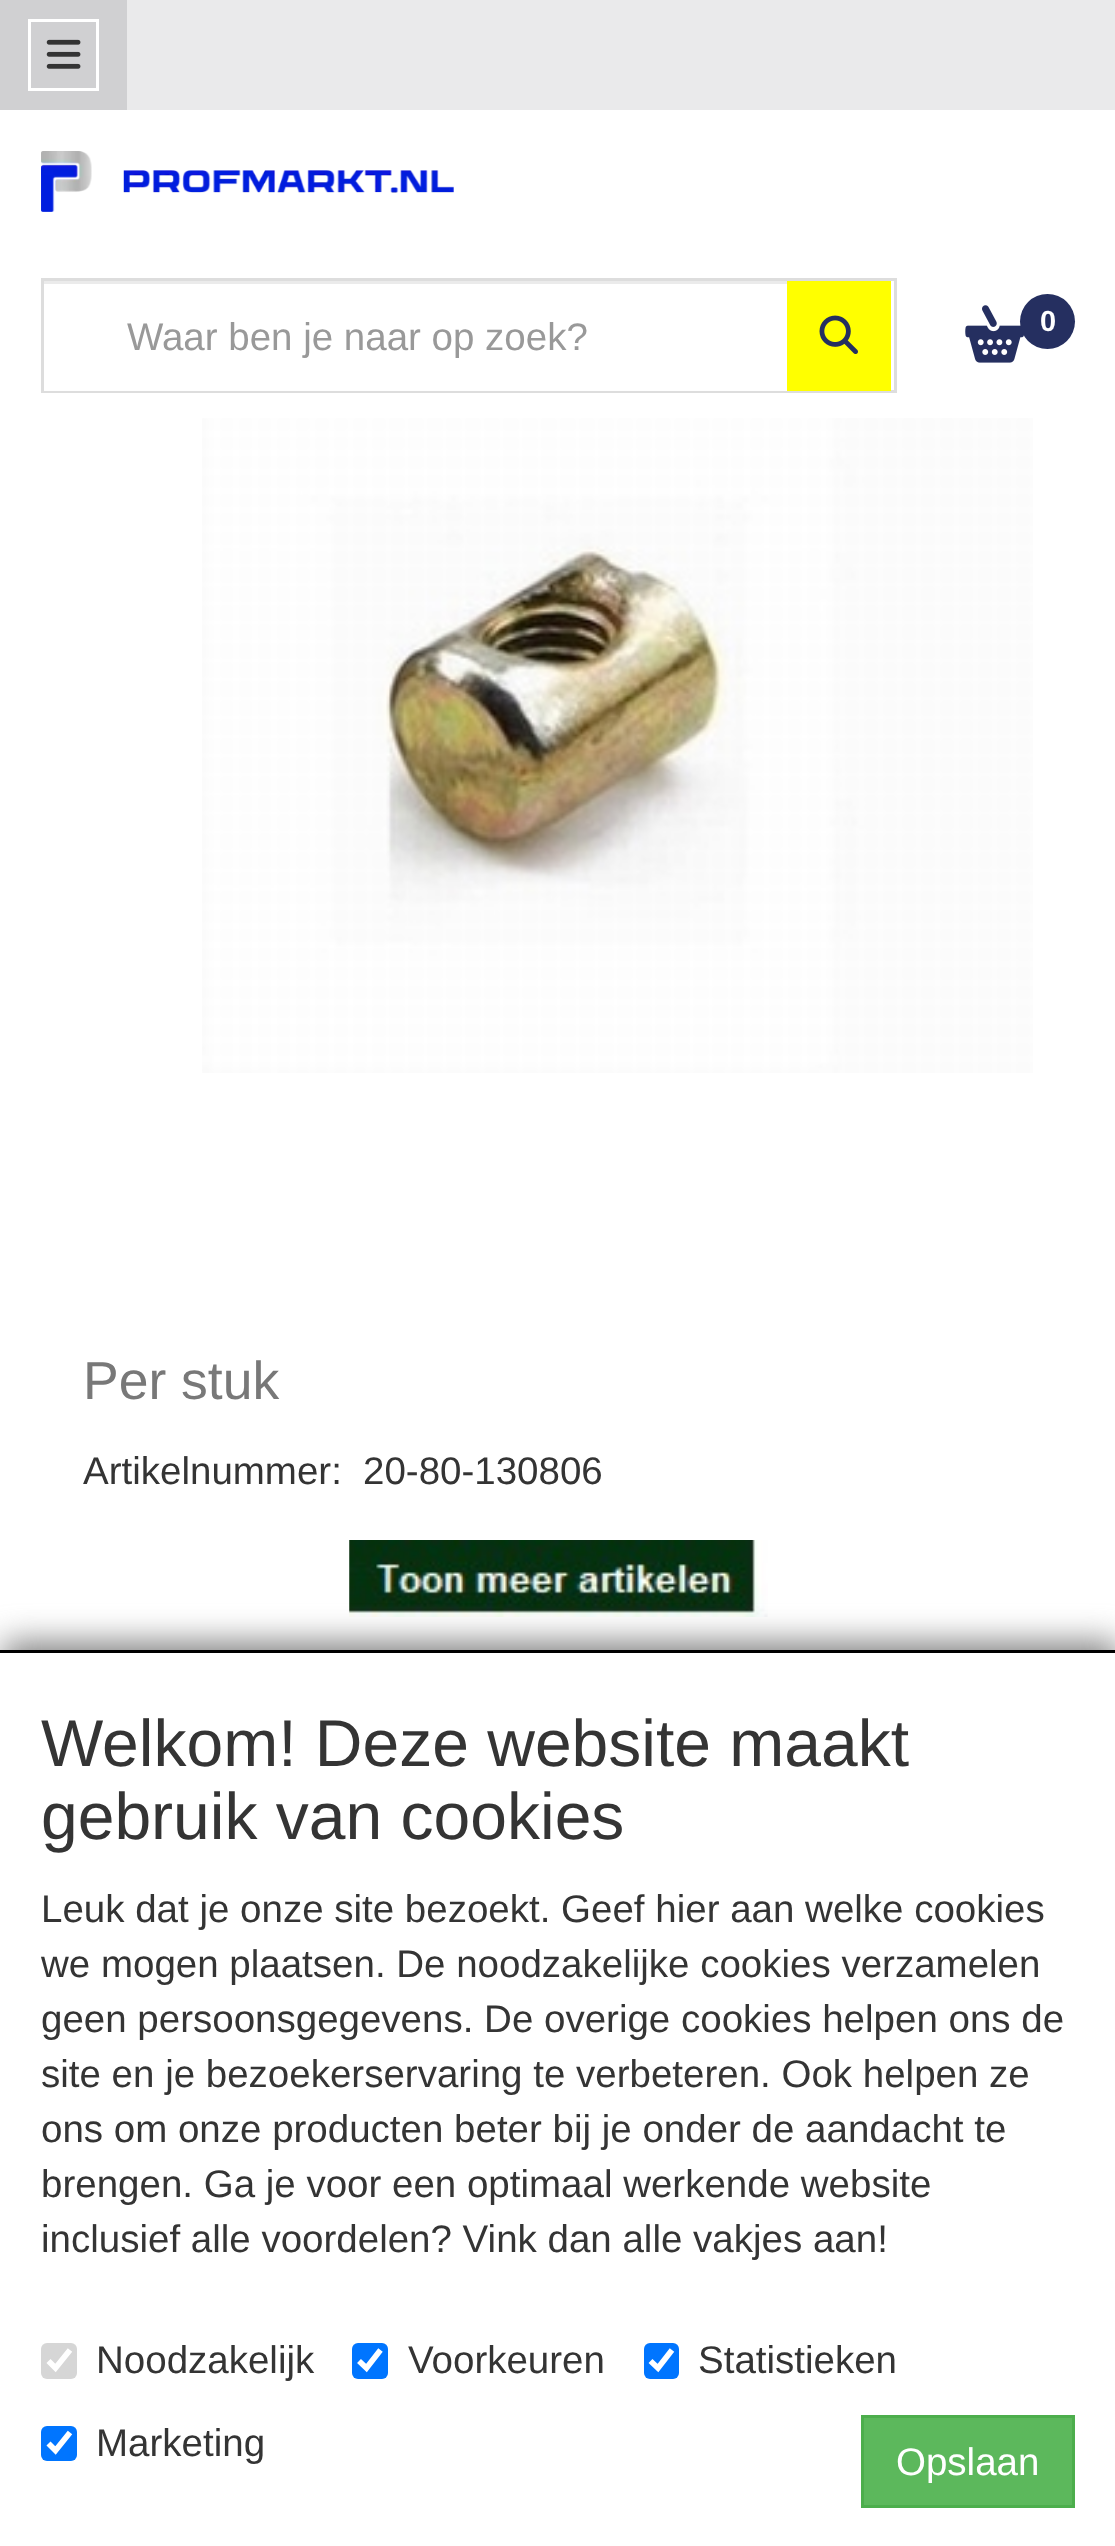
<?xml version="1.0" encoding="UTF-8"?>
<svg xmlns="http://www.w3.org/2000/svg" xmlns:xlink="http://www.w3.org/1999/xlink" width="1115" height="2546">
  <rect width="100%" height="100%" fill="#ffffff" />
  <rect x="127" width="988" height="110" fill="#eaeaeb" />
  <rect width="127" height="110" fill="#d0d0d2" />
  <rect x="29.5" y="20.5" width="68" height="69" fill="none" stroke="#ffffff" stroke-width="3" />
  <image x="46" y="39" width="35" height="30" xlink:href="image1.png" />
  <image x="41" y="151" width="413" height="61" xlink:href="image2.png" />
  <rect x="42.5" y="279.5" width="853" height="112" fill="none" stroke="#dddddd" stroke-width="3" />
  <rect x="44" y="390" width="743" height="1" fill="#fefefe" />
  <rect x="44" y="281" width="751" height="3" fill="#ebebeb" />
  <rect x="787" y="281" width="104" height="110" fill="#ffff00" />
  <image x="819" y="315" width="39" height="39" xlink:href="image3.png" />
  <image x="965" y="305" width="59" height="58" xlink:href="image4.png" />
  <circle cx="1047.5" cy="321.5" r="27.5" fill="#252f60" />
  <image x="202" y="418" width="831" height="655" xlink:href="image5.png" />
  <image x="349" y="1540" width="419" height="77" xlink:href="image6.png" />
  <rect x="3" y="1642" width="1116" height="896" fill="#808080" filter="blur(16.5px)" />
  <rect y="1653" width="1115" height="893" fill="#ffffff" />
  <rect y="1650" width="1115" height="3" fill="#000000" />
  <rect x="41" y="2343" width="36" height="36" rx="6" fill="#d6d6d6" />
  <path d="M 48.5 2361 l 7 7 l 14.5 -18" fill="none" stroke="#ffffff" stroke-width="5.7" />
  <rect x="352" y="2343" width="36" height="36" rx="6" fill="#0075ff" />
  <path d="M 359 2361 l 7.5 7 l 14 -18" fill="none" stroke="#ffffff" stroke-width="5.7" />
  <rect x="644" y="2343" width="35" height="36" rx="6" fill="#0075ff" />
  <path d="M 650.5 2361 l 7.5 7 l 14 -18" fill="none" stroke="#ffffff" stroke-width="5.7" />
  <rect x="41" y="2426" width="36" height="35" rx="6" fill="#0075ff" />
  <path d="M 48.5 2443.5 l 7 7 l 14.5 -18" fill="none" stroke="#ffffff" stroke-width="5.7" />
  <rect x="862.5" y="2416.5" width="211" height="90" fill="#5cb85c" stroke="#4cae4c" stroke-width="3" />
  <text x="127" y="350" style="font-family: Liberation Sans; font-size: 38.5px; fill: #999999">Waar ben je naar op zoek?</text>
  <text x="1040" y="331" style="font-family: Liberation Sans; font-size: 29px; font-weight: bold; fill: #ffffff">0</text>
  <text x="83" y="1399" style="font-family: Liberation Sans; font-size: 53.5px; fill: #787878">Per stuk</text>
  <text x="83" y="1484" style="font-family: Liberation Sans; font-size: 38.5px; fill: #343434">Artikelnummer:</text>
  <text x="363" y="1484" style="font-family: Liberation Sans; font-size: 38.5px; fill: #343434">20-80-130806</text>
  <text x="41" y="1766" style="font-family: Liberation Sans; font-size: 66px; fill: #343434">Welkom! Deze website maakt</text>
  <text x="41" y="1839" style="font-family: Liberation Sans; font-size: 66px; fill: #343434">gebruik van cookies</text>
  <text x="41" y="1922" style="font-family: Liberation Sans; font-size: 38.5px; fill: #343434">Leuk dat je onze site bezoekt. Geef hier aan welke cookies</text>
  <text x="41" y="1977" style="font-family: Liberation Sans; font-size: 38.5px; fill: #343434">we mogen plaatsen. De noodzakelijke cookies verzamelen</text>
  <text x="41" y="2032" style="font-family: Liberation Sans; font-size: 38.5px; fill: #343434">geen persoonsgegevens. De overige cookies helpen ons de</text>
  <text x="41" y="2087" style="font-family: Liberation Sans; font-size: 38.5px; fill: #343434">site en je bezoekerservaring te verbeteren. Ook helpen ze</text>
  <text x="41" y="2142" style="font-family: Liberation Sans; font-size: 38.5px; fill: #343434">ons om onze producten beter bij je onder de aandacht te</text>
  <text x="41" y="2197" style="font-family: Liberation Sans; font-size: 38.5px; fill: #343434">brengen. Ga je voor een optimaal werkende website</text>
  <text x="41" y="2252" style="font-family: Liberation Sans; font-size: 38.5px; fill: #343434">inclusief alle voordelen? Vink dan alle vakjes aan!</text>
  <text x="96" y="2373" style="font-family: Liberation Sans; font-size: 38.5px; fill: #343434">Noodzakelijk</text>
  <text x="408" y="2373" style="font-family: Liberation Sans; font-size: 38.5px; fill: #343434">Voorkeuren</text>
  <text x="698" y="2373" style="font-family: Liberation Sans; font-size: 38.5px; fill: #343434">Statistieken</text>
  <text x="96" y="2456" style="font-family: Liberation Sans; font-size: 38.5px; fill: #343434">Marketing</text>
  <text x="896" y="2475" style="font-family: Liberation Sans; font-size: 38.5px; fill: #ffffff">Opslaan</text>
</svg>
